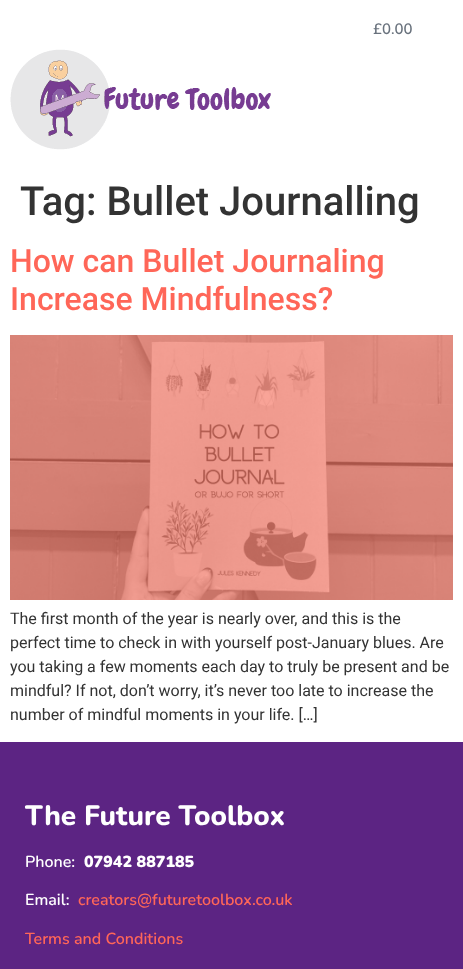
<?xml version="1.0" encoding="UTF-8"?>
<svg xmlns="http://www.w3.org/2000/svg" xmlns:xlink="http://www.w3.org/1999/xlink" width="463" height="969">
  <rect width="100%" height="100%" fill="#ffffff" />
  <image x="10" y="49" width="261" height="101" xlink:href="image1.png" />
  <image x="10" y="335" width="443" height="265" xlink:href="image2.png" />
  <rect y="742" width="463" height="227" fill="#5c2483" />
  <text x="373" y="34" style="font-family: Nunito; font-size: 15px; font-weight: 600; fill: #69727d">£0.00</text>
  <text x="20" y="215" style="font-family: Roboto; font-size: 40px; font-weight: 500; fill: #333333">Tag: Bullet Journalling</text>
  <text x="10" y="272" style="font-family: Roboto; font-size: 32px; font-weight: 500; fill: #ff6658">How can Bullet Journaling</text>
  <text x="10" y="310" style="font-family: Roboto; font-size: 32px; font-weight: 500; fill: #ff6658">Increase Mindfulness?</text>
  <text x="10" y="624" style="font-family: Roboto; font-size: 16px; fill: #333333">The first month of the year is nearly over, and this is the</text>
  <text x="10" y="648" style="font-family: Roboto; font-size: 16px; fill: #333333">perfect time to check in with yourself post-January blues. Are</text>
  <text x="10" y="672" style="font-family: Roboto; font-size: 16px; fill: #333333">you taking a few moments each day to truly be present and be</text>
  <text x="10" y="696" style="font-family: Roboto; font-size: 16px; fill: #333333">mindful? If not, don’t worry, it’s never too late to increase the</text>
  <text x="10" y="720" style="font-family: Roboto; font-size: 16px; fill: #333333">number of mindful moments in your life. […]</text>
  <text x="25" y="825" style="font-family: Nunito; font-size: 28px; font-weight: 800; fill: #ffffff">The Future Toolbox</text>
  <text x="25" y="867" style="font-family: Nunito; font-size: 16px; font-weight: 600; fill: #ffffff">Phone:</text>
  <text x="84" y="867" style="font-family: Nunito; font-size: 16px; font-weight: 900; fill: #ffffff">07942 887185</text>
  <text x="25" y="905" style="font-family: Nunito; font-size: 16px; font-weight: 600; fill: #ffffff">Email:</text>
  <text x="78" y="905" style="font-family: Nunito; font-size: 16px; font-weight: 600; fill: #ff6658">creators@futuretoolbox.co.uk</text>
  <text x="25" y="944" style="font-family: Nunito; font-size: 16px; font-weight: 600; fill: #ff6658">Terms and Conditions</text>
</svg>
